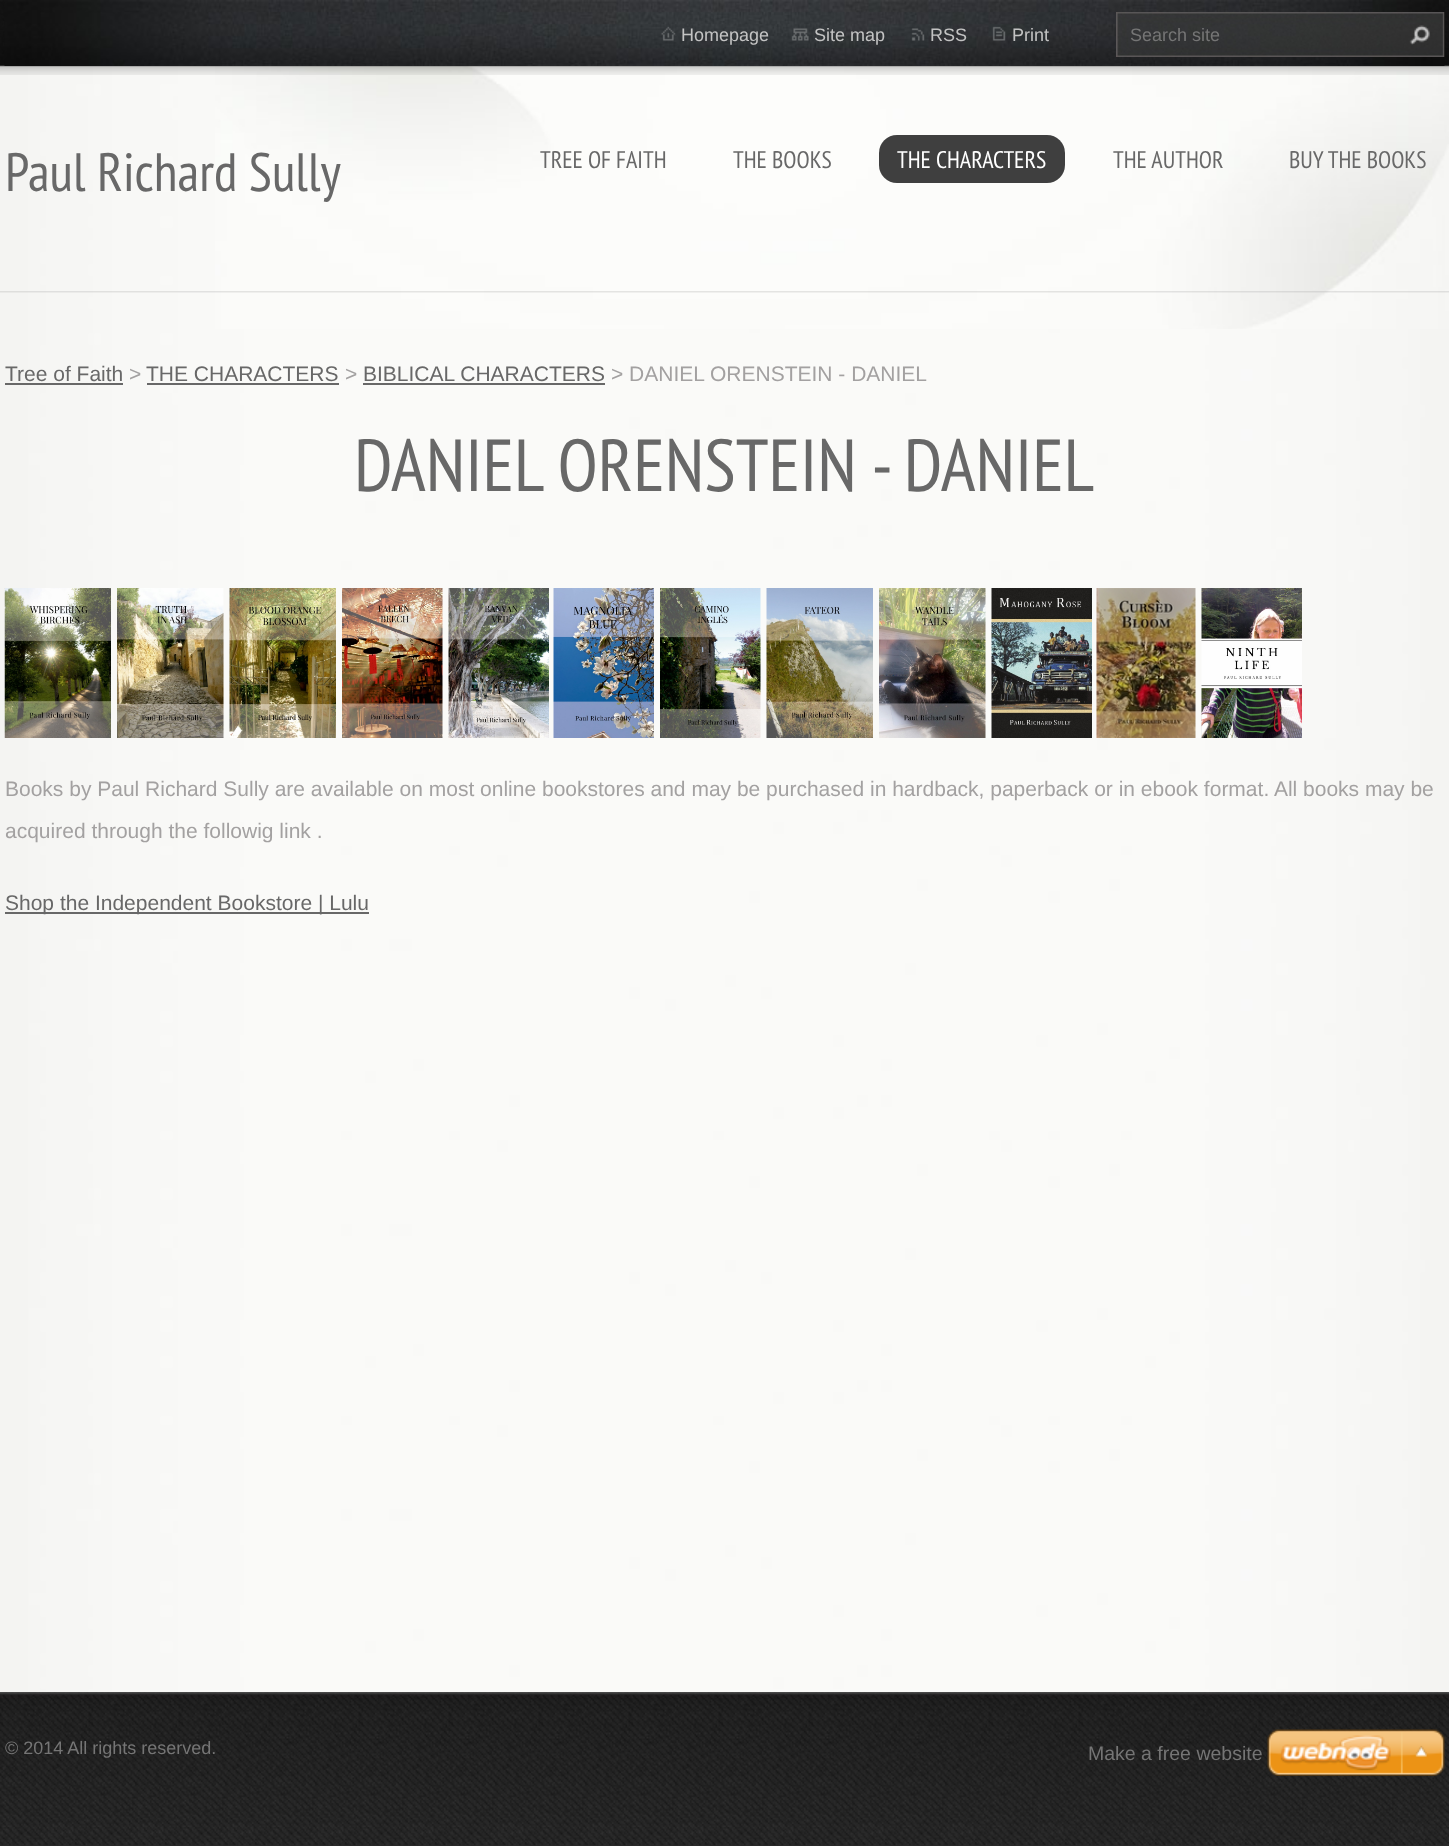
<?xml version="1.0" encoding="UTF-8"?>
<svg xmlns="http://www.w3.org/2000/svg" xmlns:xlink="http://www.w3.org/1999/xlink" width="1449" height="1846">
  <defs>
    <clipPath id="clip1"><rect x="5" y="1692" width="720" height="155" /></clipPath>
  </defs>
  <rect width="100%" height="100%" fill="#ffffff" />
  <image x="0" y="65" width="1449" height="1627" xlink:href="image1.png" />
  <image x="215" y="65" width="1234" height="264" xlink:href="image2.png" />
  <image x="0" y="291" width="1449" height="2" xlink:href="image3.png" />
  <image x="0" y="0" width="1449" height="75" xlink:href="image4.png" />
  <image x="4" y="0" width="1441" height="66" xlink:href="image5.png" />
  <image x="661" y="26" width="15" height="15" xlink:href="image6.png" />
  <image x="791" y="28" width="18" height="13" xlink:href="image7.png" />
  <image x="911" y="28" width="14" height="13" xlink:href="image8.png" />
  <image x="992" y="26" width="14" height="15" xlink:href="image9.png" />
  <image x="1116" y="12" width="329" height="45" xlink:href="image10.png" />
  <image x="1409" y="25" width="21" height="20" xlink:href="image11.png" />
  <rect x="879" y="135" width="186" height="48" rx="18" fill="#3f3f3f" />
  <rect x="5" y="383" width="118" height="2" fill="#686868" />
  <rect x="147" y="383" width="192" height="2" fill="#686868" />
  <rect x="363" y="383" width="242" height="2" fill="#686868" />
  <image x="4" y="588" width="107" height="150" xlink:href="image12.png" />
  <image x="117" y="588" width="107" height="150" xlink:href="image13.png" />
  <image x="229" y="588" width="107" height="150" xlink:href="image14.png" />
  <image x="342" y="588" width="101" height="150" xlink:href="image15.png" />
  <image x="448" y="588" width="101" height="150" xlink:href="image16.png" />
  <image x="553" y="588" width="101" height="150" xlink:href="image17.png" />
  <image x="660" y="588" width="101" height="150" xlink:href="image18.png" />
  <image x="766" y="588" width="107" height="150" xlink:href="image19.png" />
  <image x="879" y="588" width="107" height="150" xlink:href="image20.png" />
  <image x="991" y="588" width="101" height="150" xlink:href="image21.png" />
  <image x="1096" y="588" width="100" height="150" xlink:href="image22.png" />
  <image x="1201" y="588" width="101" height="150" xlink:href="image23.png" />
  <rect x="5" y="912" width="364" height="2" fill="#686868" />
  <image x="0" y="1692" width="1449" height="154" xlink:href="image24.png" />
  <image x="1267" y="1729" width="178" height="47" xlink:href="image25.png" />
  <text x="681" y="41" style="font-family: Liberation Sans; font-size: 18px; fill: #c3c3c3">Homepage</text>
  <text x="814" y="41" style="font-family: Liberation Sans; font-size: 18px; fill: #c3c3c3">Site map</text>
  <text x="930" y="41" style="font-family: Liberation Sans; font-size: 18px; fill: #c3c3c3">RSS</text>
  <text x="1012" y="41" style="font-family: Liberation Sans; font-size: 18px; fill: #c3c3c3">Print</text>
  <text x="1130" y="41" style="font-family: Liberation Sans; font-size: 18px; fill: #757575">Search site</text>
  <text x="5" y="191" style="font-family: PT Sans Narrow; font-size: 54px; fill: #686868">Paul Richard Sully</text>
  <text x="540" y="168" style="font-family: PT Sans Narrow; font-size: 24px; fill: #686868">TREE OF FAITH</text>
  <text x="733" y="168" style="font-family: PT Sans Narrow; font-size: 24px; fill: #686868">THE BOOKS</text>
  <text x="897" y="168" style="font-family: PT Sans Narrow; font-size: 24px; fill: #ffffff">THE CHARACTERS</text>
  <text x="1113" y="168" style="font-family: PT Sans Narrow; font-size: 24px; fill: #686868">THE AUTHOR</text>
  <text x="1289" y="168" style="font-family: PT Sans Narrow; font-size: 24px; fill: #686868">BUY THE BOOKS</text>
  <text x="5" y="381" style="font-family: Liberation Sans; font-size: 21px; fill: #686868">Tree of Faith</text>
  <text x="129" y="381" style="font-family: Liberation Sans; font-size: 21px; fill: #a3a1a1">&gt;</text>
  <text x="146" y="381" style="font-family: Liberation Sans; font-size: 21px; fill: #686868">THE CHARACTERS</text>
  <text x="345" y="381" style="font-family: Liberation Sans; font-size: 21px; fill: #a3a1a1">&gt;</text>
  <text x="363" y="381" style="font-family: Liberation Sans; font-size: 21px; fill: #686868">BIBLICAL CHARACTERS</text>
  <text x="611" y="381" style="font-family: Liberation Sans; font-size: 21px; fill: #a3a1a1">&gt; DANIEL ORENSTEIN - DANIEL</text>
  <text x="354" y="491" style="font-family: PT Sans Narrow; font-size: 73.5px; fill: #686868">DANIEL ORENSTEIN - DANIEL</text>
  <text x="5" y="796" style="font-family: Liberation Sans; font-size: 21px; fill: #a3a1a1">Books by Paul Richard Sully are available on most online bookstores and may be purchased in hardback, paperback or in ebook format. All books may be</text>
  <text x="5" y="838" style="font-family: Liberation Sans; font-size: 21px; fill: #a3a1a1">acquired through the followig link .</text>
  <text x="5" y="910" style="font-family: Liberation Sans; font-size: 21px; fill: #686868">Shop the Independent Bookstore | Lulu</text>
  <g clip-path="url(#clip1)">
    <text x="5" y="1754" style="font-family: Liberation Sans; font-size: 18px; fill: #757575">© 2014 All rights reserved.</text>
  </g>
  <text x="1088" y="1760" style="font-family: Liberation Sans; font-size: 19.5px; fill: #757575">Make a free website</text>
</svg>
